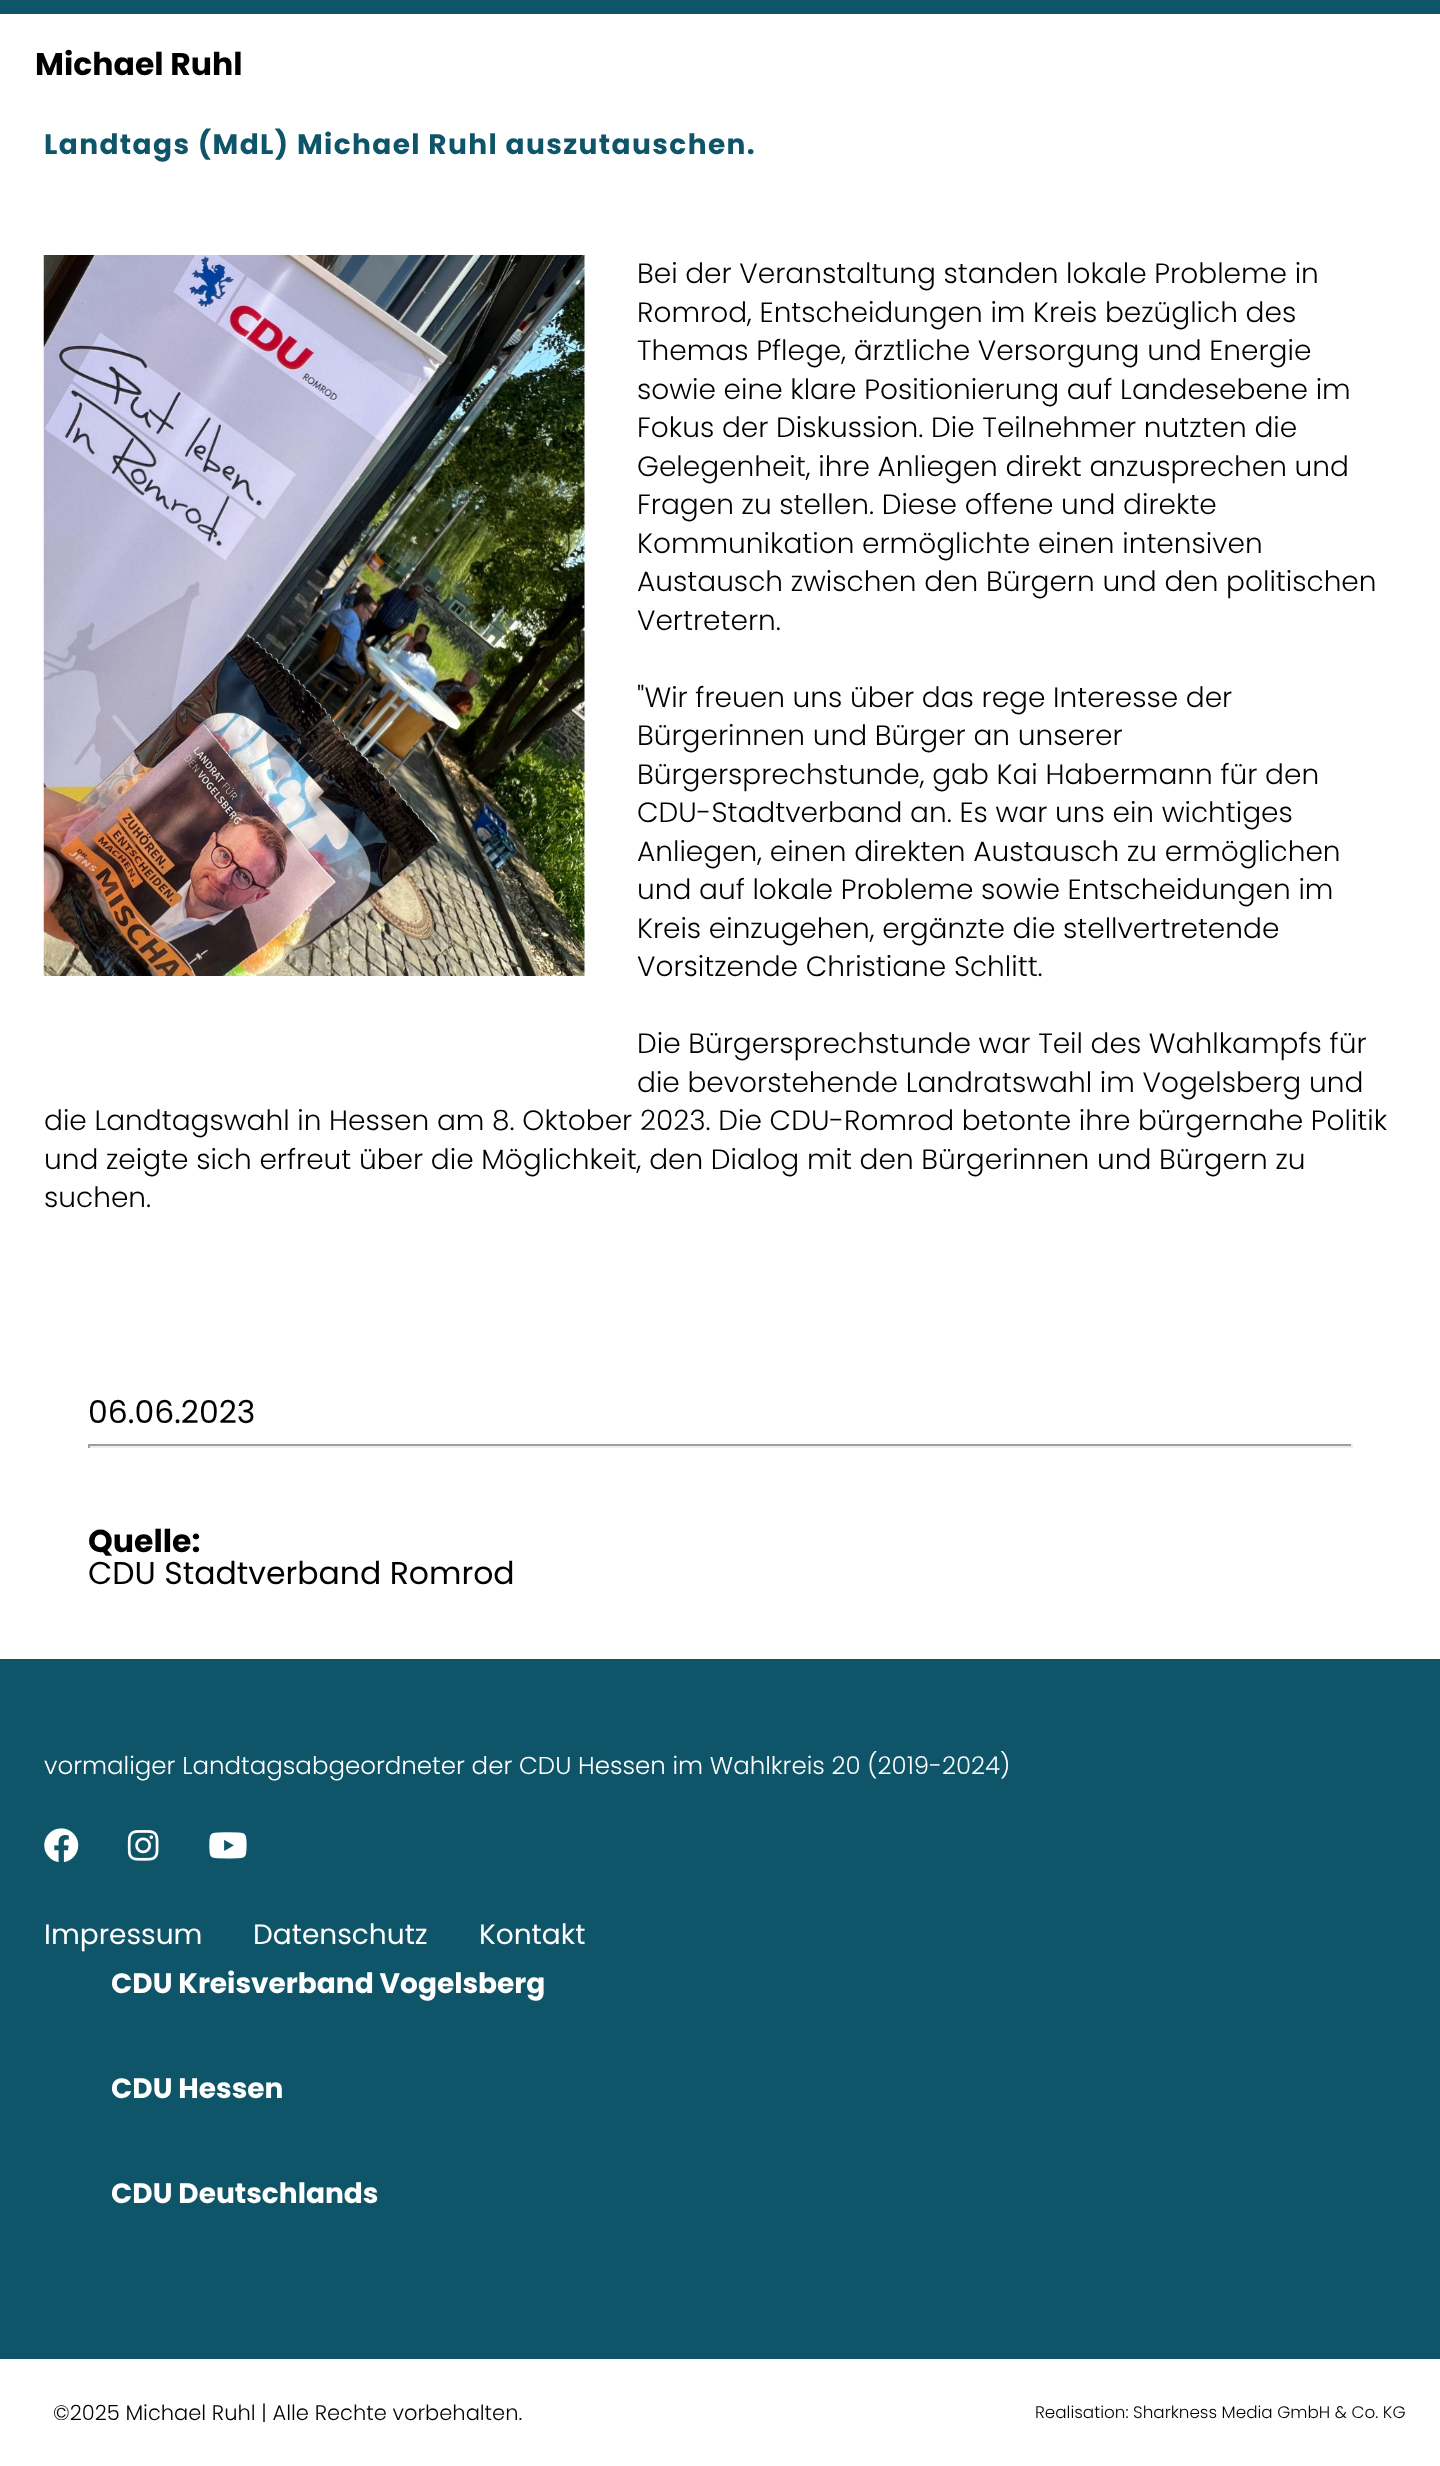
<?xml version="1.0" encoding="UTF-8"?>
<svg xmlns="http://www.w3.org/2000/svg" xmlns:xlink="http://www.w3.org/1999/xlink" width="1440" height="2466">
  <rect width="100%" height="100%" fill="#ffffff" />
  <rect width="1440" height="14" fill="#0f5569" />
  <image x="43" y="255" width="542" height="721" xlink:href="image1.png" />
  <rect x="88" y="1444" width="1265" height="2" fill="#9f9f9f" />
  <rect x="1351" y="1444" width="2" height="4" fill="#eeeeee" />
  <rect x="88" y="1446" width="1265" height="2" fill="#eeeeee" />
  <rect x="88" y="1444" width="2" height="4" fill="#9f9f9f" />
  <rect y="1659" width="1440" height="700" fill="#0f5569" />
  <image x="44" y="1828" width="35" height="35" xlink:href="image2.png" />
  <image x="127" y="1830" width="32" height="31" xlink:href="image3.png" />
  <image x="209" y="1832" width="38" height="27" xlink:href="image4.png" />
  <text x="35" y="75" style="font-family: Poppins; font-size: 31.5px; font-weight: bold; fill: #000000">Michael Ruhl</text>
  <text x="44" y="154" style="font-family: Poppins; font-size: 28px; font-weight: bold; letter-spacing: 1.4px; fill: #0f5569">Landtags (MdL) Michael Ruhl auszutauschen.</text>
  <text x="637" y="283" style="font-family: Poppins; font-size: 28px; font-weight: 300; fill: #000000">Bei der Veranstaltung standen lokale Probleme in</text>
  <text x="637" y="322" style="font-family: Poppins; font-size: 28px; font-weight: 300; fill: #000000">Romrod, Entscheidungen im Kreis bezüglich des</text>
  <text x="637" y="360" style="font-family: Poppins; font-size: 28px; font-weight: 300; fill: #000000">Themas Pflege, ärztliche Versorgung und Energie</text>
  <text x="637" y="399" style="font-family: Poppins; font-size: 28px; font-weight: 300; fill: #000000">sowie eine klare Positionierung auf Landesebene im</text>
  <text x="637" y="437" style="font-family: Poppins; font-size: 28px; font-weight: 300; fill: #000000">Fokus der Diskussion. Die Teilnehmer nutzten die</text>
  <text x="637" y="476" style="font-family: Poppins; font-size: 28px; font-weight: 300; fill: #000000">Gelegenheit, ihre Anliegen direkt anzusprechen und</text>
  <text x="637" y="514" style="font-family: Poppins; font-size: 28px; font-weight: 300; fill: #000000">Fragen zu stellen. Diese offene und direkte</text>
  <text x="637" y="553" style="font-family: Poppins; font-size: 28px; font-weight: 300; fill: #000000">Kommunikation ermöglichte einen intensiven</text>
  <text x="637" y="591" style="font-family: Poppins; font-size: 28px; font-weight: 300; fill: #000000">Austausch zwischen den Bürgern und den politischen</text>
  <text x="637" y="630" style="font-family: Poppins; font-size: 28px; font-weight: 300; fill: #000000">Vertretern.</text>
  <text x="637" y="707" style="font-family: Poppins; font-size: 28px; font-weight: 300; fill: #000000">"Wir freuen uns über das rege Interesse der</text>
  <text x="637" y="745" style="font-family: Poppins; font-size: 28px; font-weight: 300; fill: #000000">Bürgerinnen und Bürger an unserer</text>
  <text x="637" y="784" style="font-family: Poppins; font-size: 28px; font-weight: 300; fill: #000000">Bürgersprechstunde, gab Kai Habermann für den</text>
  <text x="637" y="822" style="font-family: Poppins; font-size: 28px; font-weight: 300; fill: #000000">CDU-Stadtverband an. Es war uns ein wichtiges</text>
  <text x="637" y="861" style="font-family: Poppins; font-size: 28px; font-weight: 300; fill: #000000">Anliegen, einen direkten Austausch zu ermöglichen</text>
  <text x="637" y="899" style="font-family: Poppins; font-size: 28px; font-weight: 300; fill: #000000">und auf lokale Probleme sowie Entscheidungen im</text>
  <text x="637" y="938" style="font-family: Poppins; font-size: 28px; font-weight: 300; fill: #000000">Kreis einzugehen, ergänzte die stellvertretende</text>
  <text x="637" y="976" style="font-family: Poppins; font-size: 28px; font-weight: 300; fill: #000000">Vorsitzende Christiane Schlitt.</text>
  <text x="637" y="1053" style="font-family: Poppins; font-size: 28px; font-weight: 300; fill: #000000">Die Bürgersprechstunde war Teil des Wahlkampfs für</text>
  <text x="637" y="1092" style="font-family: Poppins; font-size: 28px; font-weight: 300; fill: #000000">die bevorstehende Landratswahl im Vogelsberg und</text>
  <text x="44" y="1130" style="font-family: Poppins; font-size: 28px; font-weight: 300; fill: #000000">die Landtagswahl in Hessen am 8. Oktober 2023. Die CDU-Romrod betonte ihre bürgernahe Politik</text>
  <text x="44" y="1169" style="font-family: Poppins; font-size: 28px; font-weight: 300; fill: #000000">und zeigte sich erfreut über die Möglichkeit, den Dialog mit den Bürgerinnen und Bürgern zu</text>
  <text x="44" y="1207" style="font-family: Poppins; font-size: 28px; font-weight: 300; fill: #000000">suchen.</text>
  <text x="88" y="1423" style="font-family: Poppins; font-size: 31.5px; fill: #000000">06.06.2023</text>
  <text x="88" y="1552" style="font-family: Poppins; font-size: 31.5px; font-weight: bold; fill: #000000">Quelle:</text>
  <text x="88" y="1584" style="font-family: Poppins; font-size: 31.5px; fill: #000000">CDU Stadtverband Romrod</text>
  <text x="44" y="1774" style="font-family: Poppins; font-size: 24.5px; font-weight: 300; fill: #ffffff">vormaliger Landtagsabgeordneter der CDU Hessen im Wahlkreis 20 (2019-2024)</text>
  <text x="44" y="1944" style="font-family: Poppins; font-size: 28px; fill: #ffffff">Impressum</text>
  <text x="253" y="1944" style="font-family: Poppins; font-size: 28px; fill: #ffffff">Datenschutz</text>
  <text x="479" y="1944" style="font-family: Poppins; font-size: 28px; fill: #ffffff">Kontakt</text>
  <text x="111" y="1993" style="font-family: Poppins; font-size: 28px; font-weight: bold; fill: #ffffff">CDU Kreisverband Vogelsberg</text>
  <text x="111" y="2098" style="font-family: Poppins; font-size: 28px; font-weight: bold; fill: #ffffff">CDU Hessen</text>
  <text x="111" y="2203" style="font-family: Poppins; font-size: 28px; font-weight: bold; fill: #ffffff">CDU Deutschlands</text>
  <text x="53" y="2420" style="font-family: Poppins; font-size: 21px; font-weight: 300; fill: #000000">©2025 Michael Ruhl | Alle Rechte vorbehalten.</text>
  <text x="1035" y="2418" style="font-family: Poppins; font-size: 16.8px; font-weight: 300; fill: #000000">Realisation: Sharkness Media GmbH &amp; Co. KG</text>
</svg>
